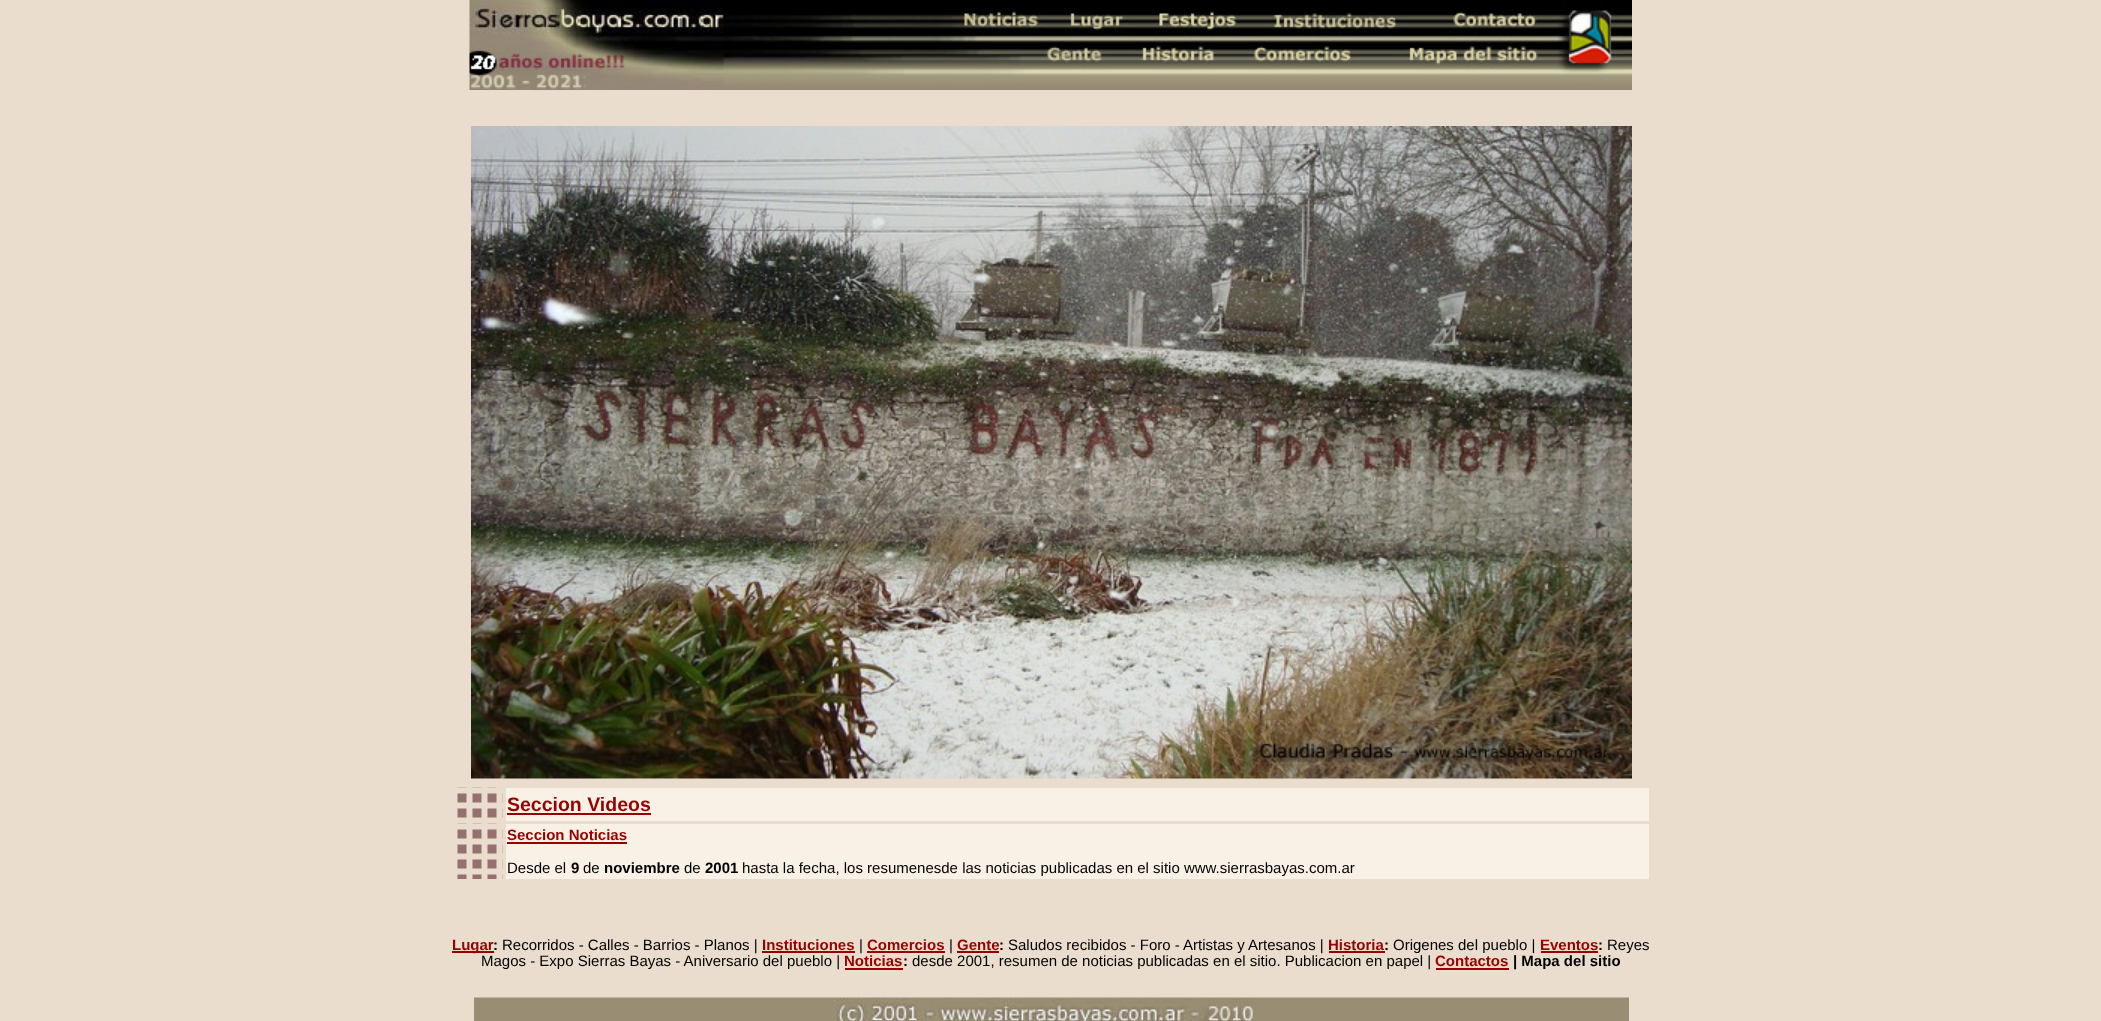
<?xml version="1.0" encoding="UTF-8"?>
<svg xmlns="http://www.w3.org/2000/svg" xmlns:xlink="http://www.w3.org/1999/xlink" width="2101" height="1021">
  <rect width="100%" height="100%" fill="#eaddcd" />
  <image x="469" y="0" width="1163" height="90" xlink:href="image1.png" />
  <image x="471" y="126" width="1161" height="653" xlink:href="image2.png" />
  <image x="457" y="787" width="46" height="31" xlink:href="image3.png" />
  <rect x="506" y="788" width="1143" height="33" fill="#f9f0e6" />
  <rect x="507" y="813" width="144" height="2" fill="#990000" />
  <image x="457" y="823" width="46" height="56" xlink:href="image4.png" />
  <rect x="506" y="824" width="1143" height="55" fill="#f9f0e6" />
  <rect x="507" y="842" width="120" height="2" fill="#990000" />
  <rect x="452" y="951" width="42" height="2" fill="#990000" />
  <rect x="762" y="951" width="93" height="2" fill="#990000" />
  <rect x="867" y="951" width="78" height="2" fill="#990000" />
  <rect x="957" y="951" width="42" height="2" fill="#990000" />
  <rect x="1329" y="951" width="56" height="2" fill="#990000" />
  <rect x="1541" y="951" width="57" height="2" fill="#990000" />
  <rect x="845" y="968" width="58" height="2" fill="#990000" />
  <rect x="1436" y="968" width="73" height="2" fill="#990000" />
  <image x="474" y="997" width="1155" height="24" xlink:href="image5.png" />
  <text x="507" y="811" style="font-family: Liberation Sans; font-size: 19.5px; font-weight: bold; fill: #990000">Seccion Videos</text>
  <text x="507" y="840" style="font-family: Liberation Sans; font-size: 15px; font-weight: bold; fill: #990000">Seccion Noticias</text>
  <text x="507" y="873" style="font-family: Liberation Sans; font-size: 15px; fill: #000000">Desde el</text>
  <text x="571" y="873" style="font-family: Liberation Sans; font-size: 15px; font-weight: bold; fill: #000000">9</text>
  <text x="583" y="873" style="font-family: Liberation Sans; font-size: 15px; fill: #000000">de</text>
  <text x="604" y="873" style="font-family: Liberation Sans; font-size: 15px; font-weight: bold; fill: #000000">noviembre</text>
  <text x="684" y="873" style="font-family: Liberation Sans; font-size: 15px; fill: #000000">de</text>
  <text x="705" y="873" style="font-family: Liberation Sans; font-size: 15px; font-weight: bold; fill: #000000">2001</text>
  <text x="742" y="873" style="font-family: Liberation Sans; font-size: 15px; fill: #000000">hasta la fecha, los resumenesde las noticias publicadas en el sitio www.sierrasbayas.com.ar</text>
  <text x="452" y="950" style="font-family: Liberation Sans; font-size: 15px; font-weight: bold; fill: #990000">Lugar</text>
  <text x="493" y="950" style="font-family: Liberation Sans; font-size: 15px; font-weight: bold; fill: #000000">:</text>
  <text x="502" y="950" style="font-family: Liberation Sans; font-size: 15px; fill: #000000">Recorridos - Calles - Barrios - Planos |</text>
  <text x="762" y="950" style="font-family: Liberation Sans; font-size: 15px; font-weight: bold; fill: #990000">Instituciones</text>
  <text x="859" y="950" style="font-family: Liberation Sans; font-size: 15px; fill: #000000">|</text>
  <text x="867" y="950" style="font-family: Liberation Sans; font-size: 15px; font-weight: bold; fill: #990000">Comercios</text>
  <text x="949" y="950" style="font-family: Liberation Sans; font-size: 15px; fill: #000000">|</text>
  <text x="957" y="950" style="font-family: Liberation Sans; font-size: 15px; font-weight: bold; fill: #990000">Gente</text>
  <text x="999" y="950" style="font-family: Liberation Sans; font-size: 15px; font-weight: bold; fill: #000000">:</text>
  <text x="1008" y="950" style="font-family: Liberation Sans; font-size: 15px; fill: #000000">Saludos recibidos - Foro - Artistas y Artesanos |</text>
  <text x="1328" y="950" style="font-family: Liberation Sans; font-size: 15px; font-weight: bold; fill: #990000">Historia</text>
  <text x="1384" y="950" style="font-family: Liberation Sans; font-size: 15px; font-weight: bold; fill: #000000">:</text>
  <text x="1393" y="950" style="font-family: Liberation Sans; font-size: 15px; fill: #000000">Origenes del pueblo |</text>
  <text x="1540" y="950" style="font-family: Liberation Sans; font-size: 15px; font-weight: bold; fill: #990000">Eventos</text>
  <text x="1598" y="950" style="font-family: Liberation Sans; font-size: 15px; font-weight: bold; fill: #000000">:</text>
  <text x="1607" y="950" style="font-family: Liberation Sans; font-size: 15px; fill: #000000">Reyes</text>
  <text x="481" y="966" style="font-family: Liberation Sans; font-size: 15px; fill: #000000">Magos - Expo Sierras Bayas - Aniversario del pueblo |</text>
  <text x="844" y="966" style="font-family: Liberation Sans; font-size: 15px; font-weight: bold; fill: #990000">Noticias</text>
  <text x="903" y="966" style="font-family: Liberation Sans; font-size: 15px; font-weight: bold; fill: #000000">:</text>
  <text x="912" y="966" style="font-family: Liberation Sans; font-size: 15px; fill: #000000">desde 2001, resumen de noticias publicadas en el sitio. Publicacion en papel |</text>
  <text x="1435" y="966" style="font-family: Liberation Sans; font-size: 15px; font-weight: bold; fill: #990000">Contactos</text>
  <text x="1513" y="966" style="font-family: Liberation Sans; font-size: 15px; font-weight: bold; fill: #000000">| Mapa del sitio</text>
</svg>
